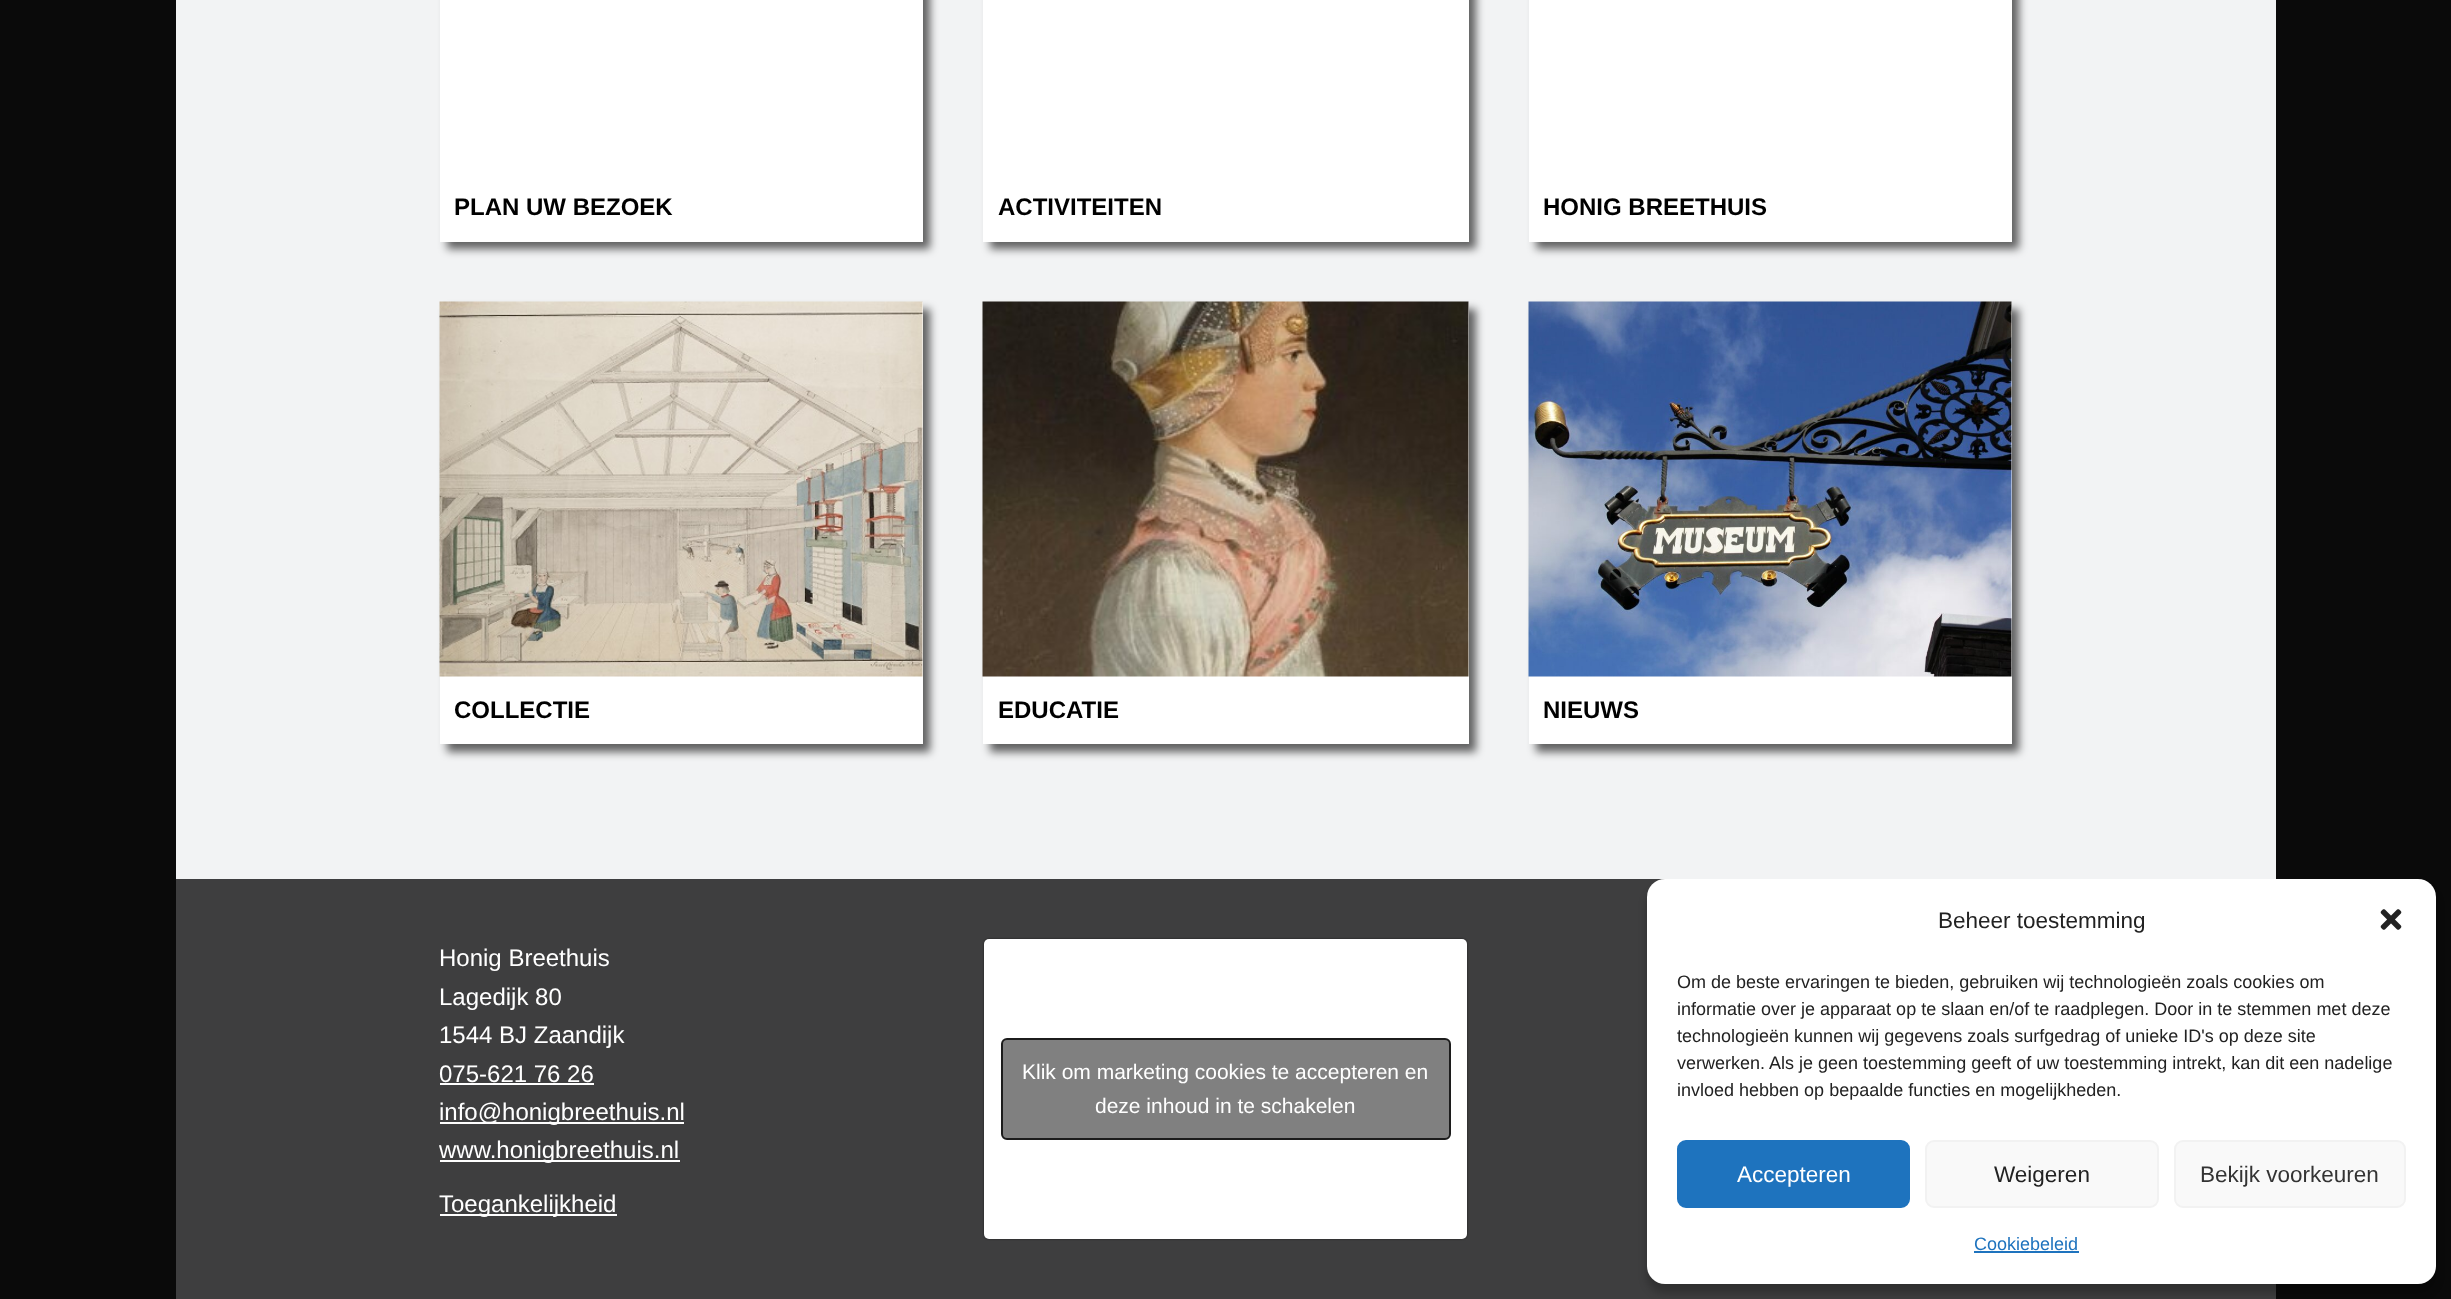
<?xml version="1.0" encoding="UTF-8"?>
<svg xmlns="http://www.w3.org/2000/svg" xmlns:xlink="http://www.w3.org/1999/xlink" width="2451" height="1299">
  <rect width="100%" height="100%" fill="#0a0a0a" />
  <rect x="176" width="2100" height="879" fill="#f2f3f4" />
  <rect x="447" y="-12" width="483" height="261" fill="#000000" fill-opacity="0.6" filter="blur(4px)" />
  <rect x="440" width="483" height="242" fill="#ffffff" />
  <rect x="990" y="-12" width="486" height="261" fill="#000000" fill-opacity="0.6" filter="blur(4px)" />
  <rect x="983" width="486" height="242" fill="#ffffff" />
  <rect x="1536" y="-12" width="483" height="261" fill="#000000" fill-opacity="0.6" filter="blur(4px)" />
  <rect x="1529" width="483" height="242" fill="#ffffff" />
  <rect x="447" y="309" width="483" height="443" fill="#000000" fill-opacity="0.6" filter="blur(4px)" />
  <rect x="440" y="302" width="483" height="442" fill="#ffffff" />
  <image x="439" y="301" width="484" height="376" xlink:href="image1.png" />
  <rect x="990" y="309" width="486" height="443" fill="#000000" fill-opacity="0.6" filter="blur(4px)" />
  <rect x="983" y="302" width="486" height="442" fill="#ffffff" />
  <image x="982" y="301" width="487" height="376" xlink:href="image2.png" />
  <rect x="1536" y="309" width="483" height="443" fill="#000000" fill-opacity="0.6" filter="blur(4px)" />
  <rect x="1529" y="302" width="483" height="442" fill="#ffffff" />
  <image x="1528" y="301" width="484" height="376" xlink:href="image3.png" />
  <rect x="176" y="879" width="2100" height="420" fill="#3e3e3f" />
  <rect x="440" y="1083" width="154" height="2" fill="#ffffff" />
  <rect x="440" y="1122" width="244" height="2" fill="#ffffff" />
  <rect x="440" y="1160" width="240" height="2" fill="#ffffff" />
  <rect x="440" y="1214" width="177" height="2" fill="#ffffff" />
  <rect x="984" y="939" width="483" height="300" rx="5" fill="#000000" fill-opacity="0.5" filter="blur(1px)" />
  <rect x="984" y="939" width="483" height="300" rx="5" fill="#ffffff" />
  <rect x="1002" y="1039" width="448" height="100" rx="5" fill="#808080" stroke="#1c1c1c" stroke-width="2" />
  <rect x="1647" y="888" width="789" height="405" rx="18" fill="#000000" fill-opacity="0.23" filter="blur(4.5px)" />
  <rect x="1647" y="879" width="789" height="405" rx="18" fill="#ffffff" />
  <image x="2380" y="909" width="22" height="21" xlink:href="image4.png" />
  <rect x="1678" y="1141" width="231" height="66" rx="8" fill="#1e73be" stroke="#1e73be" stroke-width="2" />
  <rect x="1926" y="1141" width="232" height="66" rx="8" fill="#f9f9f9" stroke="#f2f2f2" stroke-width="2" />
  <rect x="2175" y="1141" width="230" height="66" rx="8" fill="#f9f9f9" stroke="#f2f2f2" stroke-width="2" />
  <rect x="1974" y="1251" width="105" height="2" fill="#1e73be" />
  <text x="454" y="215" style="font-family: Liberation Sans; font-size: 24px; font-weight: bold; fill: #000000">PLAN UW BEZOEK</text>
  <text x="998" y="215" style="font-family: Liberation Sans; font-size: 24px; font-weight: bold; fill: #000000">ACTIVITEITEN</text>
  <text x="1543" y="215" style="font-family: Liberation Sans; font-size: 24px; font-weight: bold; fill: #000000">HONIG BREETHUIS</text>
  <text x="454" y="718" style="font-family: Liberation Sans; font-size: 24px; font-weight: bold; fill: #000000">COLLECTIE</text>
  <text x="998" y="718" style="font-family: Liberation Sans; font-size: 24px; font-weight: bold; fill: #000000">EDUCATIE</text>
  <text x="1543" y="718" style="font-family: Liberation Sans; font-size: 24px; font-weight: bold; fill: #000000">NIEUWS</text>
  <text x="439" y="966" style="font-family: Liberation Sans; font-size: 24px; fill: #ffffff">Honig Breethuis</text>
  <text x="439" y="1005" style="font-family: Liberation Sans; font-size: 24px; fill: #ffffff">Lagedijk 80</text>
  <text x="439" y="1043" style="font-family: Liberation Sans; font-size: 24px; fill: #ffffff">1544 BJ Zaandijk</text>
  <text x="439" y="1082" style="font-family: Liberation Sans; font-size: 24px; fill: #ffffff">075-621 76 26</text>
  <text x="439" y="1120" style="font-family: Liberation Sans; font-size: 24px; fill: #ffffff">info@honigbreethuis.nl</text>
  <text x="439" y="1158" style="font-family: Liberation Sans; font-size: 24px; fill: #ffffff">www.honigbreethuis.nl</text>
  <text x="439" y="1212" style="font-family: Liberation Sans; font-size: 24px; fill: #ffffff">Toegankelijkheid</text>
  <text x="1022" y="1079" style="font-family: Liberation Sans; font-size: 21px; fill: #ffffff">Klik om marketing cookies te accepteren en</text>
  <text x="1095" y="1113" style="font-family: Liberation Sans; font-size: 21px; fill: #ffffff">deze inhoud in te schakelen</text>
  <text x="1938" y="928" style="font-family: Liberation Sans; font-size: 22.5px; fill: #222222">Beheer toestemming</text>
  <text x="1677" y="988" style="font-family: Liberation Sans; font-size: 18px; fill: #222222">Om de beste ervaringen te bieden, gebruiken wij technologieën zoals cookies om</text>
  <text x="1677" y="1015" style="font-family: Liberation Sans; font-size: 18px; fill: #222222">informatie over je apparaat op te slaan en/of te raadplegen. Door in te stemmen met deze</text>
  <text x="1677" y="1042" style="font-family: Liberation Sans; font-size: 18px; fill: #222222">technologieën kunnen wij gegevens zoals surfgedrag of unieke ID's op deze site</text>
  <text x="1677" y="1069" style="font-family: Liberation Sans; font-size: 18px; fill: #222222">verwerken. Als je geen toestemming geeft of uw toestemming intrekt, kan dit een nadelige</text>
  <text x="1677" y="1096" style="font-family: Liberation Sans; font-size: 18px; fill: #222222">invloed hebben op bepaalde functies en mogelijkheden.</text>
  <text x="1737" y="1182" style="font-family: Liberation Sans; font-size: 22.5px; fill: #ffffff">Accepteren</text>
  <text x="1994" y="1182" style="font-family: Liberation Sans; font-size: 22.5px; fill: #222222">Weigeren</text>
  <text x="2200" y="1182" style="font-family: Liberation Sans; font-size: 22.5px; fill: #333333">Bekijk voorkeuren</text>
  <text x="1974" y="1250" style="font-family: Liberation Sans; font-size: 18px; fill: #1e73be">Cookiebeleid</text>
</svg>
